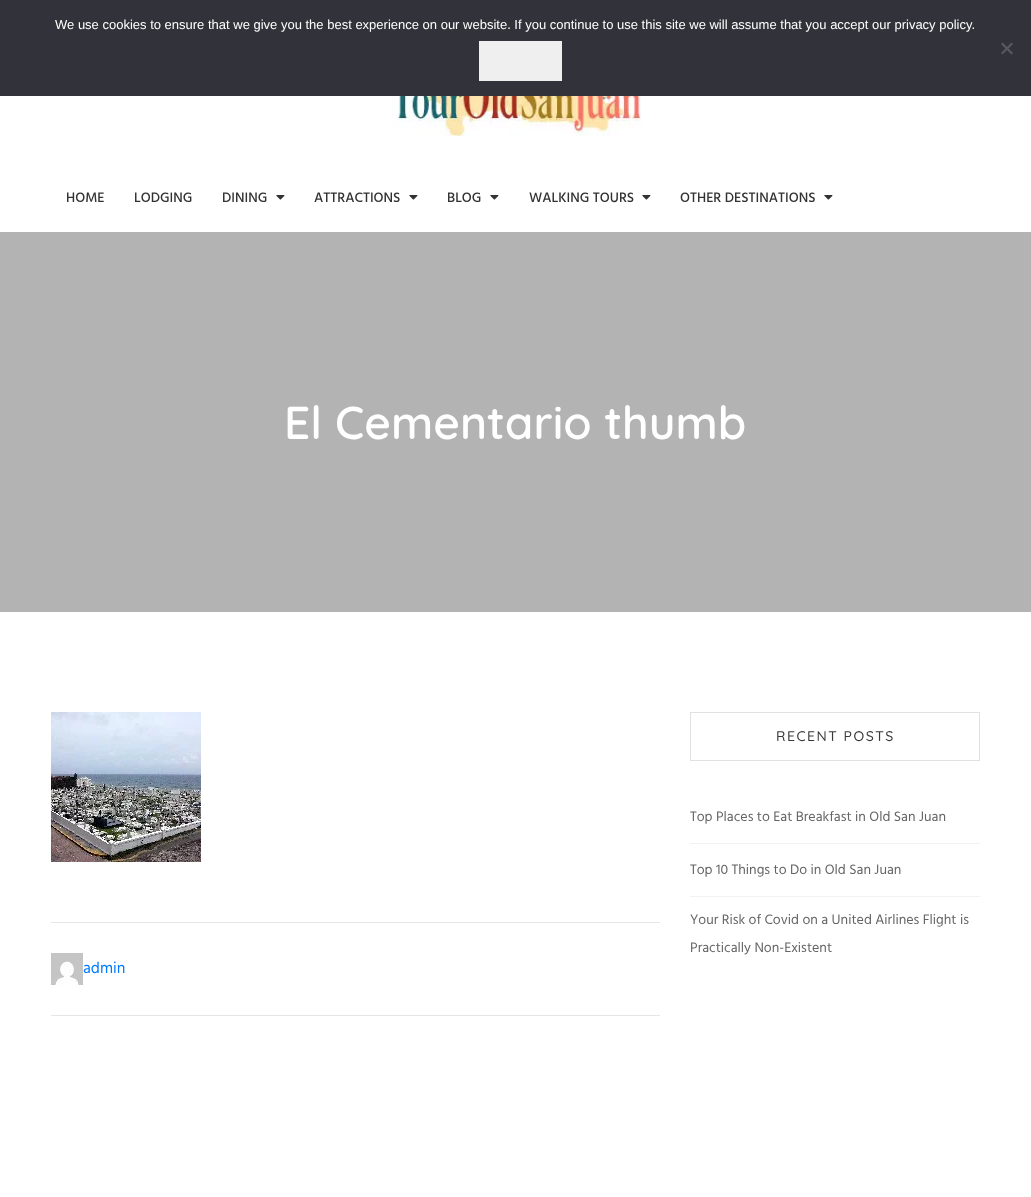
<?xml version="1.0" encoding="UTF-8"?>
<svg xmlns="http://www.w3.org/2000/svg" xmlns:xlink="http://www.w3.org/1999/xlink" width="1031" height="1197">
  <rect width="100%" height="100%" fill="#ffffff" />
  <rect width="1031" height="96" fill="#32323a" />
  <rect x="479" y="41" width="83" height="40" fill="#efefef" />
  <path d="M 1011.5 42.5 l 1.5 1.5 l -10.5 10.5 l -1.5 -1.5 z" fill="#59595d" />
  <path d="M 1001 44 l 1.5 -1.5 l 10.5 10.5 l -1.5 1.5 z" fill="#59595d" />
  <image x="391" y="96" width="250" height="40" xlink:href="image1.png" />
  <image x="276" y="195" width="9" height="5" xlink:href="image2.png" />
  <image x="409" y="195" width="9" height="5" xlink:href="image2.png" />
  <image x="490" y="195" width="9" height="5" xlink:href="image2.png" />
  <image x="642" y="195" width="9" height="5" xlink:href="image2.png" />
  <image x="824" y="195" width="9" height="5" xlink:href="image2.png" />
  <rect y="232" width="1031" height="380" fill="#b3b3b3" />
  <rect x="690.5" y="712.5" width="289" height="48" fill="none" stroke="#e1e1e1" />
  <rect x="690" y="843" width="290" height="1" fill="#f2f2f2" />
  <rect x="690" y="896" width="290" height="1" fill="#f2f2f2" />
  <image x="51" y="712" width="150" height="150" xlink:href="image3.png" />
  <rect x="51" y="922" width="609" height="1" fill="#e6e6e6" />
  <rect x="51" y="1015" width="609" height="1" fill="#e6e6e6" />
  <image x="51" y="953" width="32" height="32" xlink:href="image4.png" />
  <text x="55" y="29" style="font-family: Liberation Sans; font-size: 13px; fill: #ffffff">We use cookies to ensure that we give you the best experience on our website. If you continue to use this site we will assume that you accept our privacy policy.</text>
  <text x="66" y="202" style="font-family: Hind; font-size: 14px; font-weight: 500; fill: #323232">HOME</text>
  <text x="134" y="202" style="font-family: Hind; font-size: 14px; font-weight: 500; fill: #323232">LODGING</text>
  <text x="222" y="202" style="font-family: Hind; font-size: 14px; font-weight: 500; fill: #323232">DINING</text>
  <text x="314" y="202" style="font-family: Hind; font-size: 14px; font-weight: 500; fill: #323232">ATTRACTIONS</text>
  <text x="447" y="202" style="font-family: Hind; font-size: 14px; font-weight: 500; fill: #323232">BLOG</text>
  <text x="529" y="202" style="font-family: Hind; font-size: 14px; font-weight: 500; fill: #323232">WALKING TOURS</text>
  <text x="680" y="202" style="font-family: Hind; font-size: 14px; font-weight: 500; fill: #323232">OTHER DESTINATIONS</text>
  <text x="284" y="439" style="font-family: Quicksand; font-size: 46px; font-weight: 600; fill: #ffffff">El Cementario thumb</text>
  <text x="776" y="741" style="font-family: Quicksand; font-size: 14px; font-weight: 500; letter-spacing: 1.5px; fill: #383838">RECENT POSTS</text>
  <text x="690" y="821" style="font-family: Hind; font-size: 14px; fill: #646464">Top Places to Eat Breakfast in Old San Juan</text>
  <text x="690" y="874" style="font-family: Hind; font-size: 14px; fill: #646464">Top 10 Things to Do in Old San Juan</text>
  <text x="690" y="924" style="font-family: Hind; font-size: 14px; fill: #646464">Your Risk of Covid on a United Airlines Flight is</text>
  <text x="690" y="952" style="font-family: Hind; font-size: 14px; fill: #646464">Practically Non-Existent</text>
  <text x="83" y="973" style="font-family: Hind; font-size: 16px; fill: #007bff">admin</text>
</svg>
